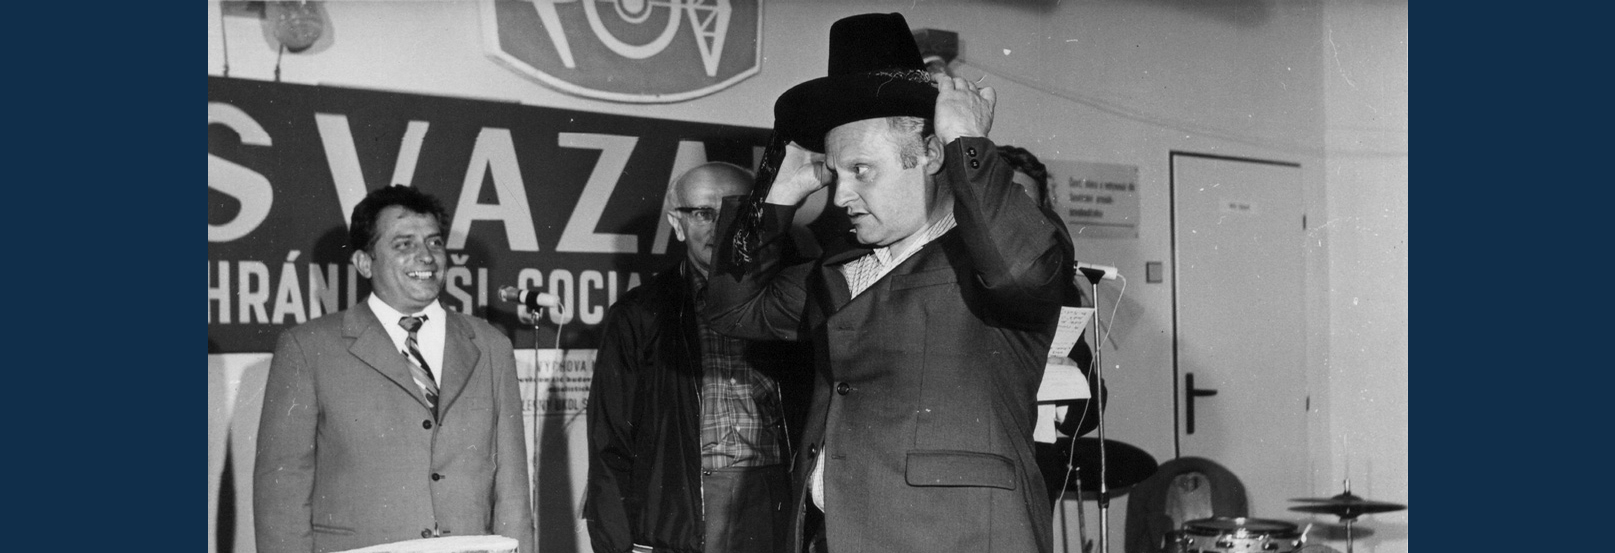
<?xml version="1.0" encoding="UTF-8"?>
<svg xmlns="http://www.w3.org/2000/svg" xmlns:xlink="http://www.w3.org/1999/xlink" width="1615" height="553">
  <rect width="100%" height="100%" fill="#102e4a" />
  <image x="208" y="0" width="1200" height="553" xlink:href="image1.png" />
</svg>
